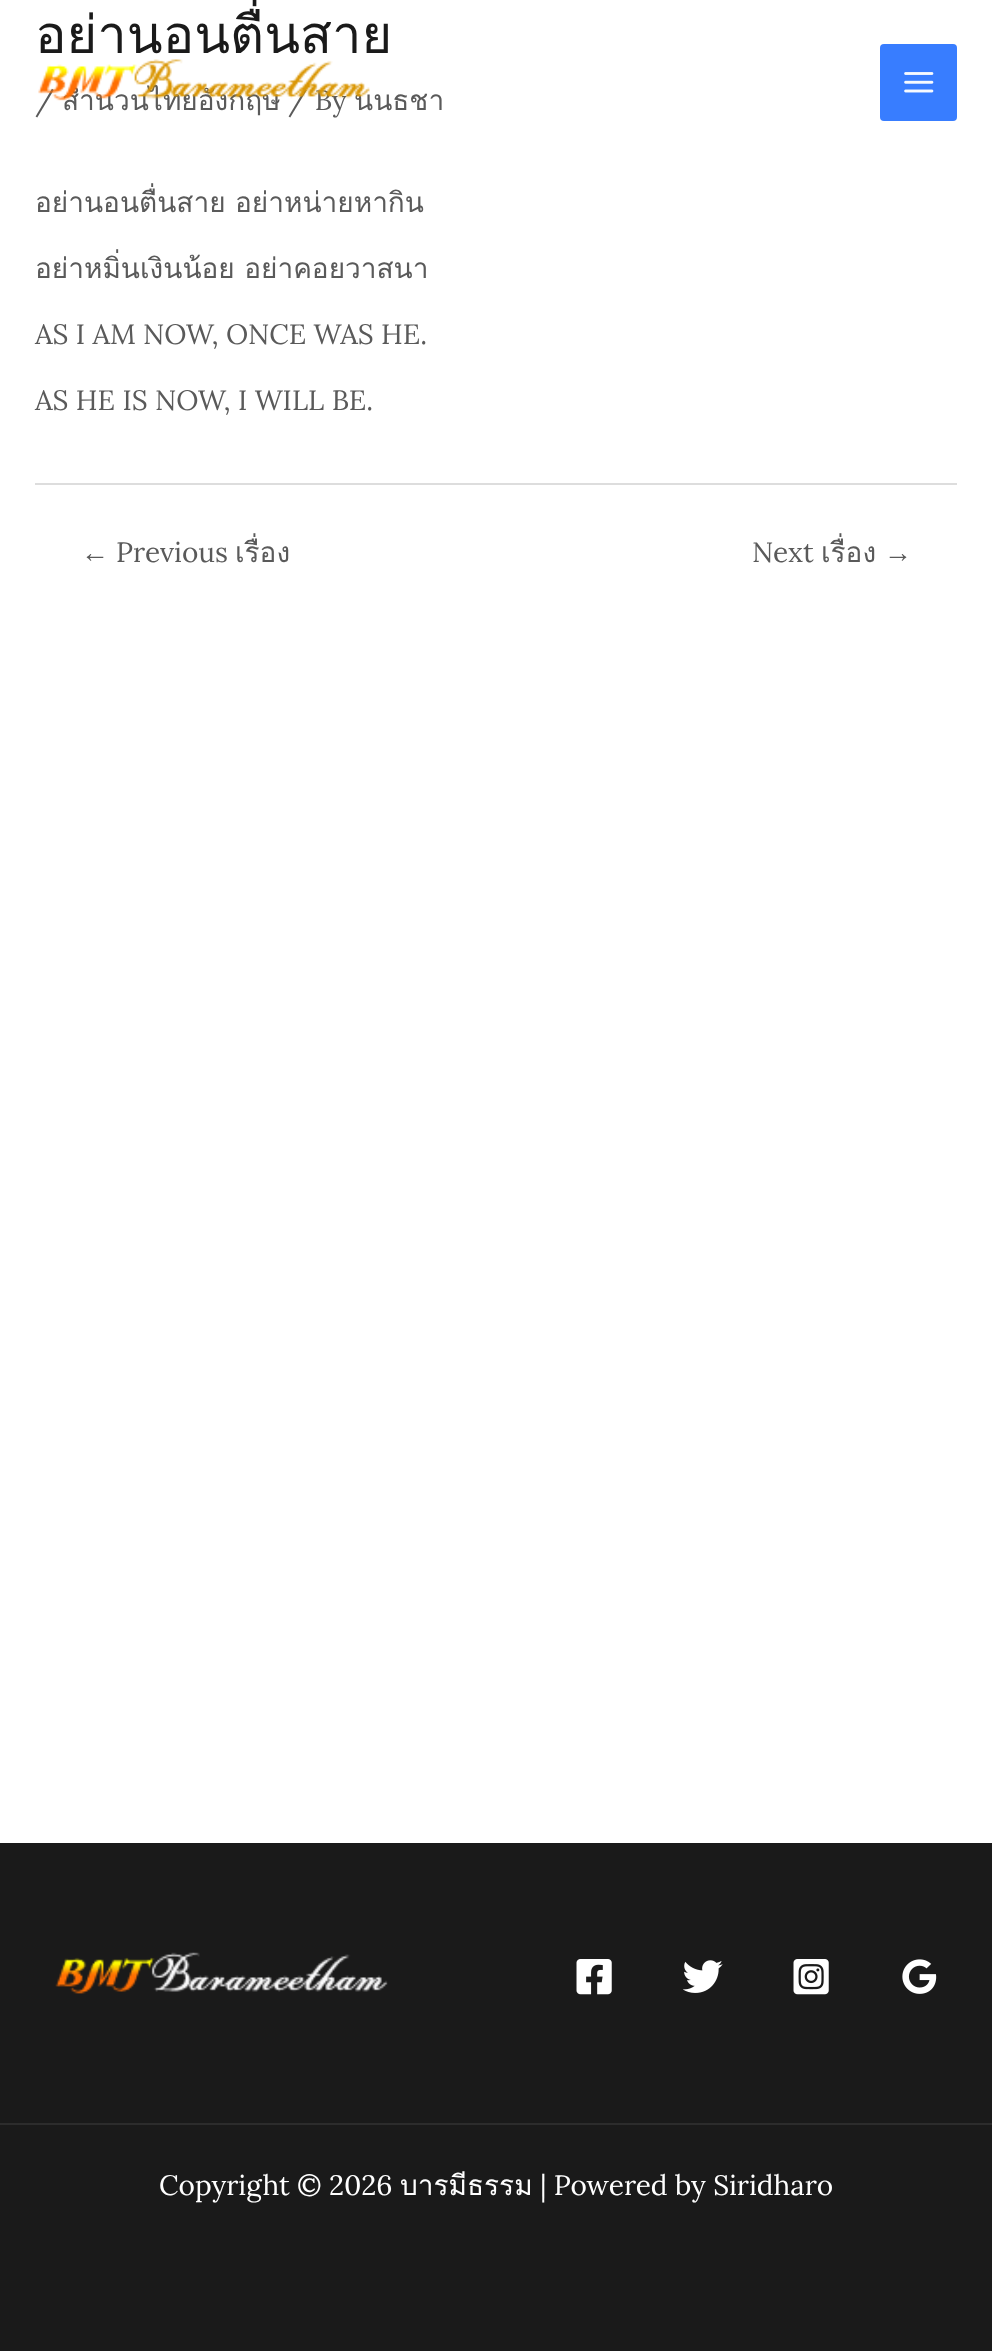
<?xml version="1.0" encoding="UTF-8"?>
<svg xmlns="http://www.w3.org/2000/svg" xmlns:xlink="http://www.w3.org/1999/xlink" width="992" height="2351">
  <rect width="100%" height="100%" fill="#ffffff" />
  <rect x="35" y="483" width="922" height="2" fill="#dddddd" />
  <rect x="880" y="44" width="77" height="77" rx="4" fill="#387dff" />
  <image x="904" y="72" width="30" height="21" xlink:href="image2.png" />
  <rect y="1843" width="992" height="280" fill="#1a1a1a" />
  <image x="55" y="1952" width="333" height="42" xlink:href="image3.png" />
  <image x="576" y="1959" width="36" height="36" xlink:href="image4.png" />
  <image x="683" y="1960" width="40" height="33" xlink:href="image5.png" />
  <image x="793" y="1959" width="36" height="36" xlink:href="image6.png" />
  <image x="902" y="1959" width="35" height="35" xlink:href="image7.png" />
  <rect y="2125" width="992" height="226" fill="#1a1a1a" />
  <rect y="2123" width="992" height="2" fill="#2c2c2c" />
  <text x="35" y="53" style="font-family: Loma; font-size: 52.5px; fill: #1a1a1a">อย่านอนตื่นสาย</text>
  <text x="35" y="110" style="font-family: Lora; font-size: 28px; fill: #5a5a5a">/</text>
  <text x="62" y="110" style="font-family: Loma; font-size: 28px; fill: #5a5a5a">สำนวนไทยอังกฤษ</text>
  <text x="288" y="110" style="font-family: Lora; font-size: 28px; fill: #5a5a5a">/ By</text>
  <text x="354" y="110" style="font-family: Loma; font-size: 28px; fill: #5a5a5a">นนธชา</text>
  <text x="35" y="212" style="font-family: Loma; font-size: 28px; fill: #5a5a5a">อย่านอนตื่นสาย อย่าหน่ายหากิน</text>
  <text x="35" y="278" style="font-family: Loma; font-size: 28px; fill: #5a5a5a">อย่าหมิ่นเงินน้อย อย่าคอยวาสนา</text>
  <text x="35" y="344" style="font-family: Lora; font-size: 28px; fill: #5a5a5a">AS I AM NOW, ONCE WAS HE.</text>
  <text x="35" y="410" style="font-family: Lora; font-size: 28px; fill: #5a5a5a">AS HE IS NOW, I WILL BE.</text>
  <text x="81" y="562" style="font-family: Liberation Serif; font-size: 28px; fill: #5a5a5a">←</text>
  <text x="116" y="562" style="font-family: Lora; font-size: 28px; fill: #5a5a5a">Previous</text>
  <text x="235" y="562" style="font-family: Loma; font-size: 28px; fill: #5a5a5a">เรื่อง</text>
  <text x="752" y="562" style="font-family: Lora; font-size: 28px; fill: #5a5a5a">Next</text>
  <text x="821" y="562" style="font-family: Loma; font-size: 28px; fill: #5a5a5a">เรื่อง</text>
  <text x="884" y="562" style="font-family: Liberation Serif; font-size: 28px; fill: #5a5a5a">→</text>
  <image x="38" y="59" width="332" height="42" xlink:href="image1.png" />
  <text x="159" y="2195" style="font-family: Lora; font-size: 28px; fill: #ffffff">Copyright © 2026</text>
  <text x="400" y="2195" style="font-family: Loma; font-size: 28px; fill: #ffffff">บารมีธรรม</text>
  <text x="540" y="2195" style="font-family: Lora; font-size: 28px; fill: #ffffff">| Powered by Siridharo</text>
</svg>
